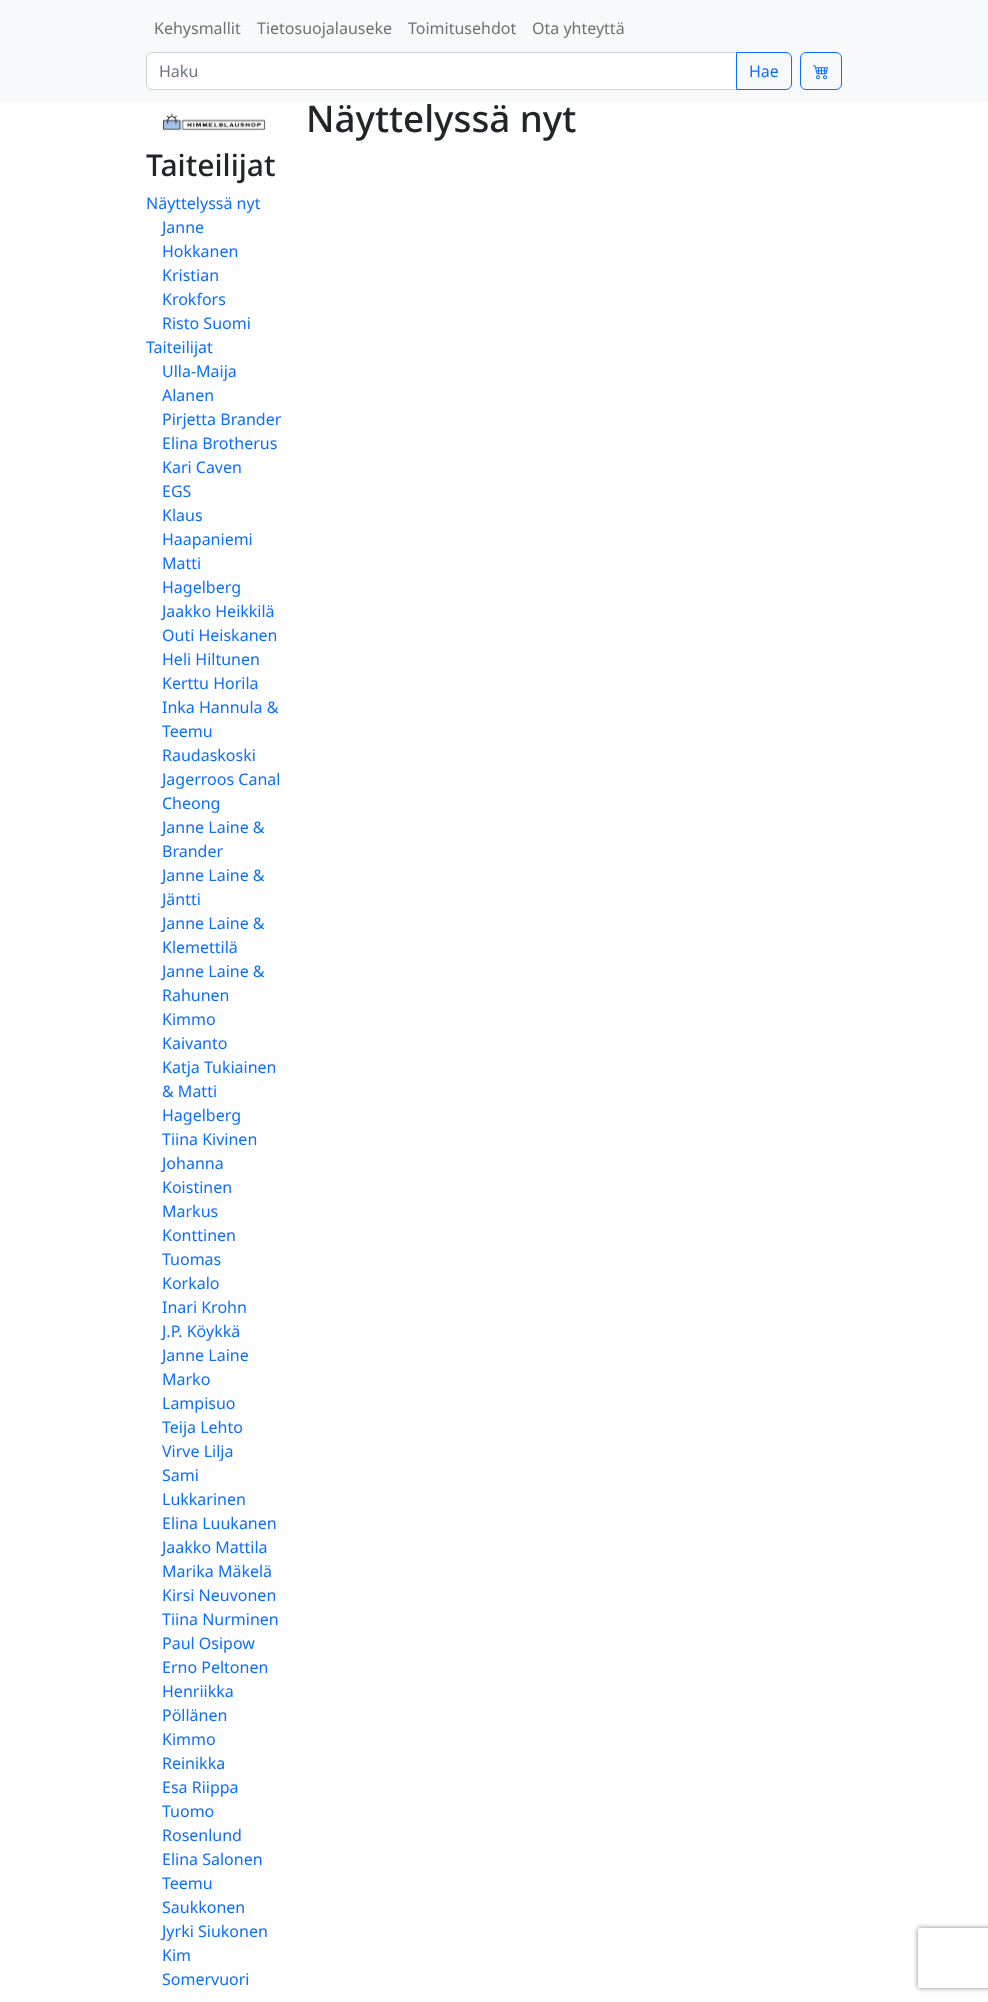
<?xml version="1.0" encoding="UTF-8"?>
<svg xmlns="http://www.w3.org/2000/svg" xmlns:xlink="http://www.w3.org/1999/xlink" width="988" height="2002">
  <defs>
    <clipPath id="clip1"><path d="M 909 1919 h 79 v 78 h -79 z m 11 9 h 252 c 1 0 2 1 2 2 v 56 c 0 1 -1 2 -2 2 h -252 c -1 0 -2 -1 -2 -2 v -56 c 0 -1 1 -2 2 -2 z" clip-rule="evenodd" /></clipPath>
  </defs>
  <rect width="100%" height="100%" fill="#ffffff" />
  <rect width="988" height="102" fill="#f8f9fa" />
  <path d="M 152 52.5 h 584.5 v 37 h -584.5 c -3 0 -5.5 -2.5 -5.5 -5.5 v -26 c 0 -3 2.5 -5.5 5.5 -5.5 z" fill="#ffffff" stroke="#ced4da" />
  <path d="M 736.5 52.5 h 49.5 c 3 0 5.5 2.5 5.5 5.5 v 26 c 0 3 -2.5 5.5 -5.5 5.5 h -49.5 z" fill="none" stroke="#0d6efd" />
  <rect x="800.5" y="52.5" width="41" height="37" rx="5.5" fill="none" stroke="#0d6efd" />
  <image x="813" y="65" width="15" height="15" xlink:href="image1.png" />
  <image x="163" y="113" width="103" height="18" xlink:href="image2.png" />
  <g clip-path="url(#clip1)">
    <rect x="918" y="1928" width="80" height="60" rx="2" fill="#808080" filter="blur(2.5px)" />
  </g>
  <text x="154" y="34" style="font-family: Noto Sans; font-size: 16px; fill: #707071">Kehysmallit</text>
  <text x="257" y="34" style="font-family: Noto Sans; font-size: 16px; fill: #707071">Tietosuojalauseke</text>
  <text x="408" y="34" style="font-family: Noto Sans; font-size: 16px; fill: #707071">Toimitusehdot</text>
  <text x="532" y="34" style="font-family: Noto Sans; font-size: 16px; fill: #707071">Ota yhteyttä</text>
  <text x="159" y="77" style="font-family: Noto Sans; font-size: 16px; fill: #6c757d">Haku</text>
  <text x="749" y="77" style="font-family: Noto Sans; font-size: 16px; fill: #0d6efd">Hae</text>
  <text x="306" y="132" style="font-family: Noto Sans; font-size: 36.75px; font-weight: 500; fill: #212529">Näyttelyssä nyt</text>
  <text x="146" y="176" style="font-family: Noto Sans; font-size: 30px; font-weight: 500; fill: #212529">Taiteilijat</text>
  <text x="146" y="209" style="font-family: Noto Sans; font-size: 16px; fill: #0d6efd">Näyttelyssä nyt</text>
  <text x="162" y="233" style="font-family: Noto Sans; font-size: 16px; fill: #0d6efd">Janne</text>
  <text x="162" y="257" style="font-family: Noto Sans; font-size: 16px; fill: #0d6efd">Hokkanen</text>
  <text x="162" y="281" style="font-family: Noto Sans; font-size: 16px; fill: #0d6efd">Kristian</text>
  <text x="162" y="305" style="font-family: Noto Sans; font-size: 16px; fill: #0d6efd">Krokfors</text>
  <text x="162" y="329" style="font-family: Noto Sans; font-size: 16px; fill: #0d6efd">Risto Suomi</text>
  <text x="146" y="353" style="font-family: Noto Sans; font-size: 16px; fill: #0d6efd">Taiteilijat</text>
  <text x="162" y="377" style="font-family: Noto Sans; font-size: 16px; fill: #0d6efd">Ulla-Maija</text>
  <text x="162" y="401" style="font-family: Noto Sans; font-size: 16px; fill: #0d6efd">Alanen</text>
  <text x="162" y="425" style="font-family: Noto Sans; font-size: 16px; fill: #0d6efd">Pirjetta Brander</text>
  <text x="162" y="449" style="font-family: Noto Sans; font-size: 16px; fill: #0d6efd">Elina Brotherus</text>
  <text x="162" y="473" style="font-family: Noto Sans; font-size: 16px; fill: #0d6efd">Kari Caven</text>
  <text x="162" y="497" style="font-family: Noto Sans; font-size: 16px; fill: #0d6efd">EGS</text>
  <text x="162" y="521" style="font-family: Noto Sans; font-size: 16px; fill: #0d6efd">Klaus</text>
  <text x="162" y="545" style="font-family: Noto Sans; font-size: 16px; fill: #0d6efd">Haapaniemi</text>
  <text x="162" y="569" style="font-family: Noto Sans; font-size: 16px; fill: #0d6efd">Matti</text>
  <text x="162" y="593" style="font-family: Noto Sans; font-size: 16px; fill: #0d6efd">Hagelberg</text>
  <text x="162" y="617" style="font-family: Noto Sans; font-size: 16px; fill: #0d6efd">Jaakko Heikkilä</text>
  <text x="162" y="641" style="font-family: Noto Sans; font-size: 16px; fill: #0d6efd">Outi Heiskanen</text>
  <text x="162" y="665" style="font-family: Noto Sans; font-size: 16px; fill: #0d6efd">Heli Hiltunen</text>
  <text x="162" y="689" style="font-family: Noto Sans; font-size: 16px; fill: #0d6efd">Kerttu Horila</text>
  <text x="162" y="713" style="font-family: Noto Sans; font-size: 16px; fill: #0d6efd">Inka Hannula &amp;</text>
  <text x="162" y="737" style="font-family: Noto Sans; font-size: 16px; fill: #0d6efd">Teemu</text>
  <text x="162" y="761" style="font-family: Noto Sans; font-size: 16px; fill: #0d6efd">Raudaskoski</text>
  <text x="162" y="785" style="font-family: Noto Sans; font-size: 16px; fill: #0d6efd">Jagerroos Canal</text>
  <text x="162" y="809" style="font-family: Noto Sans; font-size: 16px; fill: #0d6efd">Cheong</text>
  <text x="162" y="833" style="font-family: Noto Sans; font-size: 16px; fill: #0d6efd">Janne Laine &amp;</text>
  <text x="162" y="857" style="font-family: Noto Sans; font-size: 16px; fill: #0d6efd">Brander</text>
  <text x="162" y="881" style="font-family: Noto Sans; font-size: 16px; fill: #0d6efd">Janne Laine &amp;</text>
  <text x="162" y="905" style="font-family: Noto Sans; font-size: 16px; fill: #0d6efd">Jäntti</text>
  <text x="162" y="929" style="font-family: Noto Sans; font-size: 16px; fill: #0d6efd">Janne Laine &amp;</text>
  <text x="162" y="953" style="font-family: Noto Sans; font-size: 16px; fill: #0d6efd">Klemettilä</text>
  <text x="162" y="977" style="font-family: Noto Sans; font-size: 16px; fill: #0d6efd">Janne Laine &amp;</text>
  <text x="162" y="1001" style="font-family: Noto Sans; font-size: 16px; fill: #0d6efd">Rahunen</text>
  <text x="162" y="1025" style="font-family: Noto Sans; font-size: 16px; fill: #0d6efd">Kimmo</text>
  <text x="162" y="1049" style="font-family: Noto Sans; font-size: 16px; fill: #0d6efd">Kaivanto</text>
  <text x="162" y="1073" style="font-family: Noto Sans; font-size: 16px; fill: #0d6efd">Katja Tukiainen</text>
  <text x="162" y="1097" style="font-family: Noto Sans; font-size: 16px; fill: #0d6efd">&amp; Matti</text>
  <text x="162" y="1121" style="font-family: Noto Sans; font-size: 16px; fill: #0d6efd">Hagelberg</text>
  <text x="162" y="1145" style="font-family: Noto Sans; font-size: 16px; fill: #0d6efd">Tiina Kivinen</text>
  <text x="162" y="1169" style="font-family: Noto Sans; font-size: 16px; fill: #0d6efd">Johanna</text>
  <text x="162" y="1193" style="font-family: Noto Sans; font-size: 16px; fill: #0d6efd">Koistinen</text>
  <text x="162" y="1217" style="font-family: Noto Sans; font-size: 16px; fill: #0d6efd">Markus</text>
  <text x="162" y="1241" style="font-family: Noto Sans; font-size: 16px; fill: #0d6efd">Konttinen</text>
  <text x="162" y="1265" style="font-family: Noto Sans; font-size: 16px; fill: #0d6efd">Tuomas</text>
  <text x="162" y="1289" style="font-family: Noto Sans; font-size: 16px; fill: #0d6efd">Korkalo</text>
  <text x="162" y="1313" style="font-family: Noto Sans; font-size: 16px; fill: #0d6efd">Inari Krohn</text>
  <text x="162" y="1337" style="font-family: Noto Sans; font-size: 16px; fill: #0d6efd">J.P. Köykkä</text>
  <text x="162" y="1361" style="font-family: Noto Sans; font-size: 16px; fill: #0d6efd">Janne Laine</text>
  <text x="162" y="1385" style="font-family: Noto Sans; font-size: 16px; fill: #0d6efd">Marko</text>
  <text x="162" y="1409" style="font-family: Noto Sans; font-size: 16px; fill: #0d6efd">Lampisuo</text>
  <text x="162" y="1433" style="font-family: Noto Sans; font-size: 16px; fill: #0d6efd">Teija Lehto</text>
  <text x="162" y="1457" style="font-family: Noto Sans; font-size: 16px; fill: #0d6efd">Virve Lilja</text>
  <text x="162" y="1481" style="font-family: Noto Sans; font-size: 16px; fill: #0d6efd">Sami</text>
  <text x="162" y="1505" style="font-family: Noto Sans; font-size: 16px; fill: #0d6efd">Lukkarinen</text>
  <text x="162" y="1529" style="font-family: Noto Sans; font-size: 16px; fill: #0d6efd">Elina Luukanen</text>
  <text x="162" y="1553" style="font-family: Noto Sans; font-size: 16px; fill: #0d6efd">Jaakko Mattila</text>
  <text x="162" y="1577" style="font-family: Noto Sans; font-size: 16px; fill: #0d6efd">Marika Mäkelä</text>
  <text x="162" y="1601" style="font-family: Noto Sans; font-size: 16px; fill: #0d6efd">Kirsi Neuvonen</text>
  <text x="162" y="1625" style="font-family: Noto Sans; font-size: 16px; fill: #0d6efd">Tiina Nurminen</text>
  <text x="162" y="1649" style="font-family: Noto Sans; font-size: 16px; fill: #0d6efd">Paul Osipow</text>
  <text x="162" y="1673" style="font-family: Noto Sans; font-size: 16px; fill: #0d6efd">Erno Peltonen</text>
  <text x="162" y="1697" style="font-family: Noto Sans; font-size: 16px; fill: #0d6efd">Henriikka</text>
  <text x="162" y="1721" style="font-family: Noto Sans; font-size: 16px; fill: #0d6efd">Pöllänen</text>
  <text x="162" y="1745" style="font-family: Noto Sans; font-size: 16px; fill: #0d6efd">Kimmo</text>
  <text x="162" y="1769" style="font-family: Noto Sans; font-size: 16px; fill: #0d6efd">Reinikka</text>
  <text x="162" y="1793" style="font-family: Noto Sans; font-size: 16px; fill: #0d6efd">Esa Riippa</text>
  <text x="162" y="1817" style="font-family: Noto Sans; font-size: 16px; fill: #0d6efd">Tuomo</text>
  <text x="162" y="1841" style="font-family: Noto Sans; font-size: 16px; fill: #0d6efd">Rosenlund</text>
  <text x="162" y="1865" style="font-family: Noto Sans; font-size: 16px; fill: #0d6efd">Elina Salonen</text>
  <text x="162" y="1889" style="font-family: Noto Sans; font-size: 16px; fill: #0d6efd">Teemu</text>
  <text x="162" y="1913" style="font-family: Noto Sans; font-size: 16px; fill: #0d6efd">Saukkonen</text>
  <text x="162" y="1937" style="font-family: Noto Sans; font-size: 16px; fill: #0d6efd">Jyrki Siukonen</text>
  <text x="162" y="1961" style="font-family: Noto Sans; font-size: 16px; fill: #0d6efd">Kim</text>
  <text x="162" y="1985" style="font-family: Noto Sans; font-size: 16px; fill: #0d6efd">Somervuori</text>
</svg>
